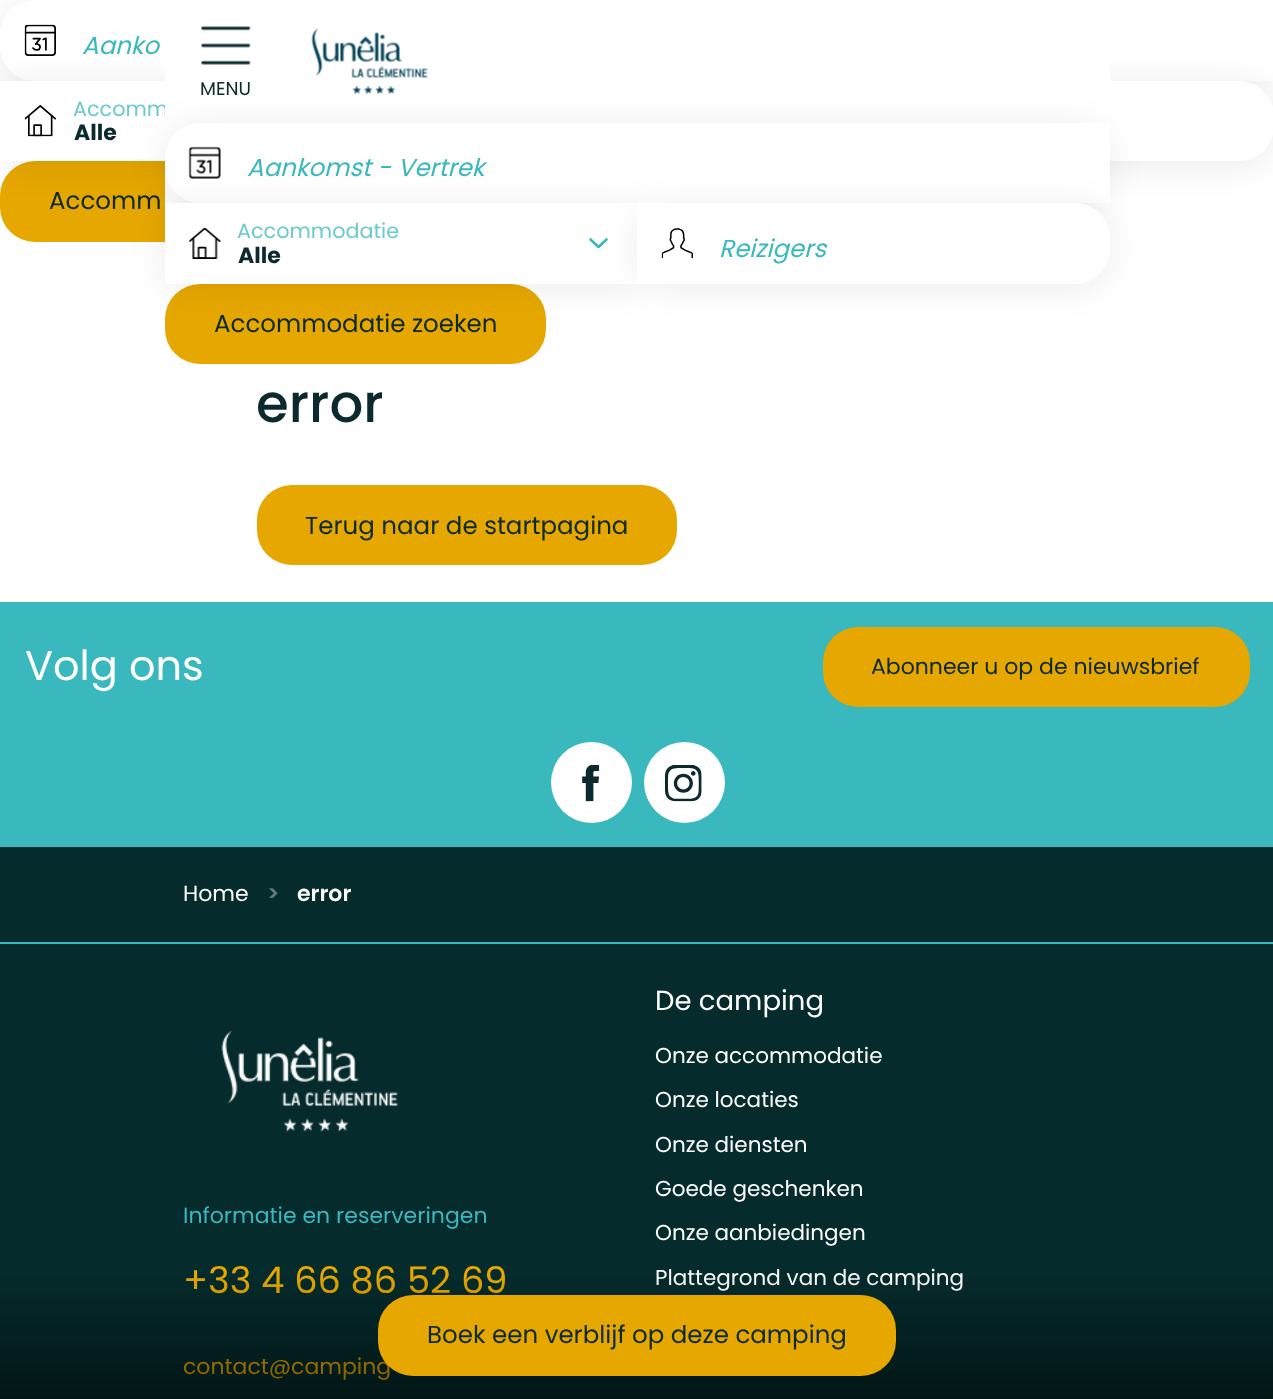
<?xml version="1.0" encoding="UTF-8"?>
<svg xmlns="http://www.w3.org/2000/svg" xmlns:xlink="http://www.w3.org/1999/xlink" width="1273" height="1399">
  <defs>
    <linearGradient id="g1" gradientUnits="userSpaceOnUse" x1="637" y1="1271" x2="637" y2="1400"><stop offset="0" stop-color="#000000" stop-opacity="0" /><stop offset="1" stop-color="#000000" stop-opacity="0.5" /></linearGradient>
  </defs>
  <rect width="100%" height="100%" fill="#ffffff" />
  <rect y="4" width="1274" height="80" rx="35" fill="#000000" fill-opacity="0.08" filter="blur(17.5px)" />
  <path d="M 35 0 h 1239 v 81 h -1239 c -19.5 0 -35 -15.5 -35 -35 v -11 c 0 -19.5 15.5 -35 35 -35 z" fill="#ffffff" />
  <image x="24" y="24" width="32" height="32" xlink:href="image1.png" />
  <rect x="637" y="84" width="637" height="81" rx="35" fill="#000000" fill-opacity="0.08" filter="blur(17.5px)" />
  <rect y="161" width="382" height="81" rx="35" fill="#e6a700" />
  <rect y="84" width="637" height="81" fill="#000000" fill-opacity="0.08" filter="blur(17.5px)" />
  <path d="M 637 81 h 602 c 19.5 0 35 15.5 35 35 v 10 c 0 19.5 -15.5 35 -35 35 h -602 z" fill="#ffffff" />
  <rect y="81" width="165" height="80" fill="#ffffff" />
  <image x="24" y="105" width="32" height="32" xlink:href="image2.png" />
  <rect x="257" y="485" width="420" height="80" rx="35" fill="#e6a700" />
  <rect y="847" width="1273" height="552" fill="#052b2c" />
  <rect y="602" width="1273" height="245" fill="#39b8be" />
  <rect x="823" y="627" width="427" height="80" rx="35" fill="#e6a700" />
  <circle cx="591.5" cy="782.5" r="40.5" fill="#ffffff" />
  <image x="582" y="765" width="18" height="37" xlink:href="image8.png" />
  <circle cx="684.5" cy="782.5" r="40.5" fill="#ffffff" />
  <image x="665" y="765" width="37" height="37" xlink:href="image9.png" />
  <rect y="942" width="1273" height="2" fill="#39b8be" />
  <image x="221" y="1030" width="177" height="102" xlink:href="image10.png" />
  <text x="82" y="54" style="font-family: Poppins; font-size: 24.5px; font-style: italic; fill: #39b8be">Aanko</text>
  <text x="73" y="116" style="font-family: Poppins; font-size: 20.75px; fill: #6bcace">Accomm</text>
  <text x="74" y="140" style="font-family: Poppins; font-size: 22px; font-weight: bold; fill: #0c2a2d">Alle</text>
  <text x="49" y="209" style="font-family: Poppins; font-size: 24.5px; fill: #0c2a2d">Accomm</text>
  <path d="M 165 0 h 945 v 329 c 0 19.5 -15.5 35 -35 35 h -875 c -19.5 0 -35 -15.5 -35 -35 z" fill="#ffffff" />
  <image x="201" y="26" width="50" height="39" xlink:href="image3.png" />
  <text x="200" y="95" style="font-family: Poppins; font-size: 18.5px; fill: #0c2a2d">MENU</text>
  <image x="311" y="28" width="117" height="67" xlink:href="image4.png" />
  <rect x="165" y="126" width="945" height="81" rx="35" fill="#000000" fill-opacity="0.08" filter="blur(17.5px)" />
  <path d="M 200 123 h 910 v 80 h -910 c -19.5 0 -35 -15.5 -35 -35 v -10 c 0 -19.5 15.5 -35 35 -35 z" fill="#ffffff" />
  <image x="188" y="146" width="33" height="33" xlink:href="image5.png" />
  <text x="247" y="176" style="font-family: Poppins; font-size: 24.5px; font-style: italic; fill: #39b8be">Aankomst - Vertrek</text>
  <rect x="165" y="284" width="381" height="80" rx="35" fill="#e6a700" />
  <rect x="165" y="207" width="472" height="80" fill="#000000" fill-opacity="0.08" filter="blur(17.5px)" />
  <rect x="165" y="203" width="472" height="81" fill="#ffffff" />
  <path d="M 590.5 239.5 l 8 7.5 l 8 -7.5" fill="none" stroke="#39b8be" stroke-width="2.6" stroke-linecap="round" stroke-linejoin="round" />
  <rect x="637" y="207" width="473" height="80" rx="35" fill="#000000" fill-opacity="0.08" filter="blur(17.5px)" />
  <path d="M 637 203 h 438 c 19.5 0 35 15.5 35 35 v 11 c 0 19.5 -15.5 35 -35 35 h -438 z" fill="#ffffff" />
  <text x="719" y="257" style="font-family: Poppins; font-size: 24.5px; font-style: italic; fill: #39b8be">Reizigers</text>
  <image x="661" y="228" width="32" height="31" xlink:href="image7.png" />
  <text x="237" y="238" style="font-family: Poppins; font-size: 20.75px; fill: #6bcace">Accommodatie</text>
  <image x="188" y="227" width="33" height="32" xlink:href="image6.png" />
  <text x="238" y="263" style="font-family: Poppins; font-size: 22px; font-weight: bold; fill: #0c2a2d">Alle</text>
  <text x="214" y="332" style="font-family: Poppins; font-size: 24.5px; fill: #0c2a2d">Accommodatie zoeken</text>
  <text x="256" y="422" style="font-family: Poppins; font-size: 53px; font-weight: 500; fill: #0c2a2d">error</text>
  <text x="305" y="534" style="font-family: Poppins; font-size: 24.5px; fill: #0c2a2d">Terug naar de startpagina</text>
  <text x="25" y="680" style="font-family: Poppins; font-size: 41.5px; fill: #ffffff">Volg ons</text>
  <text x="871" y="674" style="font-family: Poppins; font-size: 22px; fill: #0c2a2d">Abonneer u op de nieuwsbrief</text>
  <text x="183" y="901" style="font-family: Poppins; font-size: 22px; fill: #ffffff">Home</text>
  <text x="267" y="901" style="font-family: Poppins; font-size: 22px; font-weight: 600; fill: #6c757d">&gt;</text>
  <text x="297" y="901" style="font-family: Poppins; font-size: 22px; font-weight: 600; fill: #ffffff">error</text>
  <text x="183" y="1223" style="font-family: Poppins; font-size: 22px; fill: #39b8be">Informatie en reserveringen</text>
  <text x="183" y="1293" style="font-family: Poppins; font-size: 36.75px; fill: #e6a700">+33 4 66 86 52 69</text>
  <text x="183" y="1374" style="font-family: Poppins; font-size: 22px; fill: #e6a700">contact@camping</text>
  <text x="655" y="1010" style="font-family: Poppins; font-size: 27.5px; fill: #ffffff">De camping</text>
  <text x="655" y="1063" style="font-family: Poppins; font-size: 21.5px; fill: #ffffff">Onze accommodatie</text>
  <text x="655" y="1107" style="font-family: Poppins; font-size: 21.5px; fill: #ffffff">Onze locaties</text>
  <text x="655" y="1152" style="font-family: Poppins; font-size: 21.5px; fill: #ffffff">Onze diensten</text>
  <text x="655" y="1196" style="font-family: Poppins; font-size: 21.5px; fill: #ffffff">Goede geschenken</text>
  <text x="655" y="1240" style="font-family: Poppins; font-size: 21.5px; fill: #ffffff">Onze aanbiedingen</text>
  <text x="655" y="1285" style="font-family: Poppins; font-size: 21.5px; fill: #ffffff">Plattegrond van de camping</text>
  <rect y="1277" width="1273" height="122" fill="url(#g1)" />
  <rect x="378" y="1295" width="518" height="81" rx="35" fill="#e6a700" />
  <text x="427" y="1343" style="font-family: Poppins; font-size: 24.5px; fill: #0c2a2d">Boek een verblijf op deze camping</text>
</svg>
